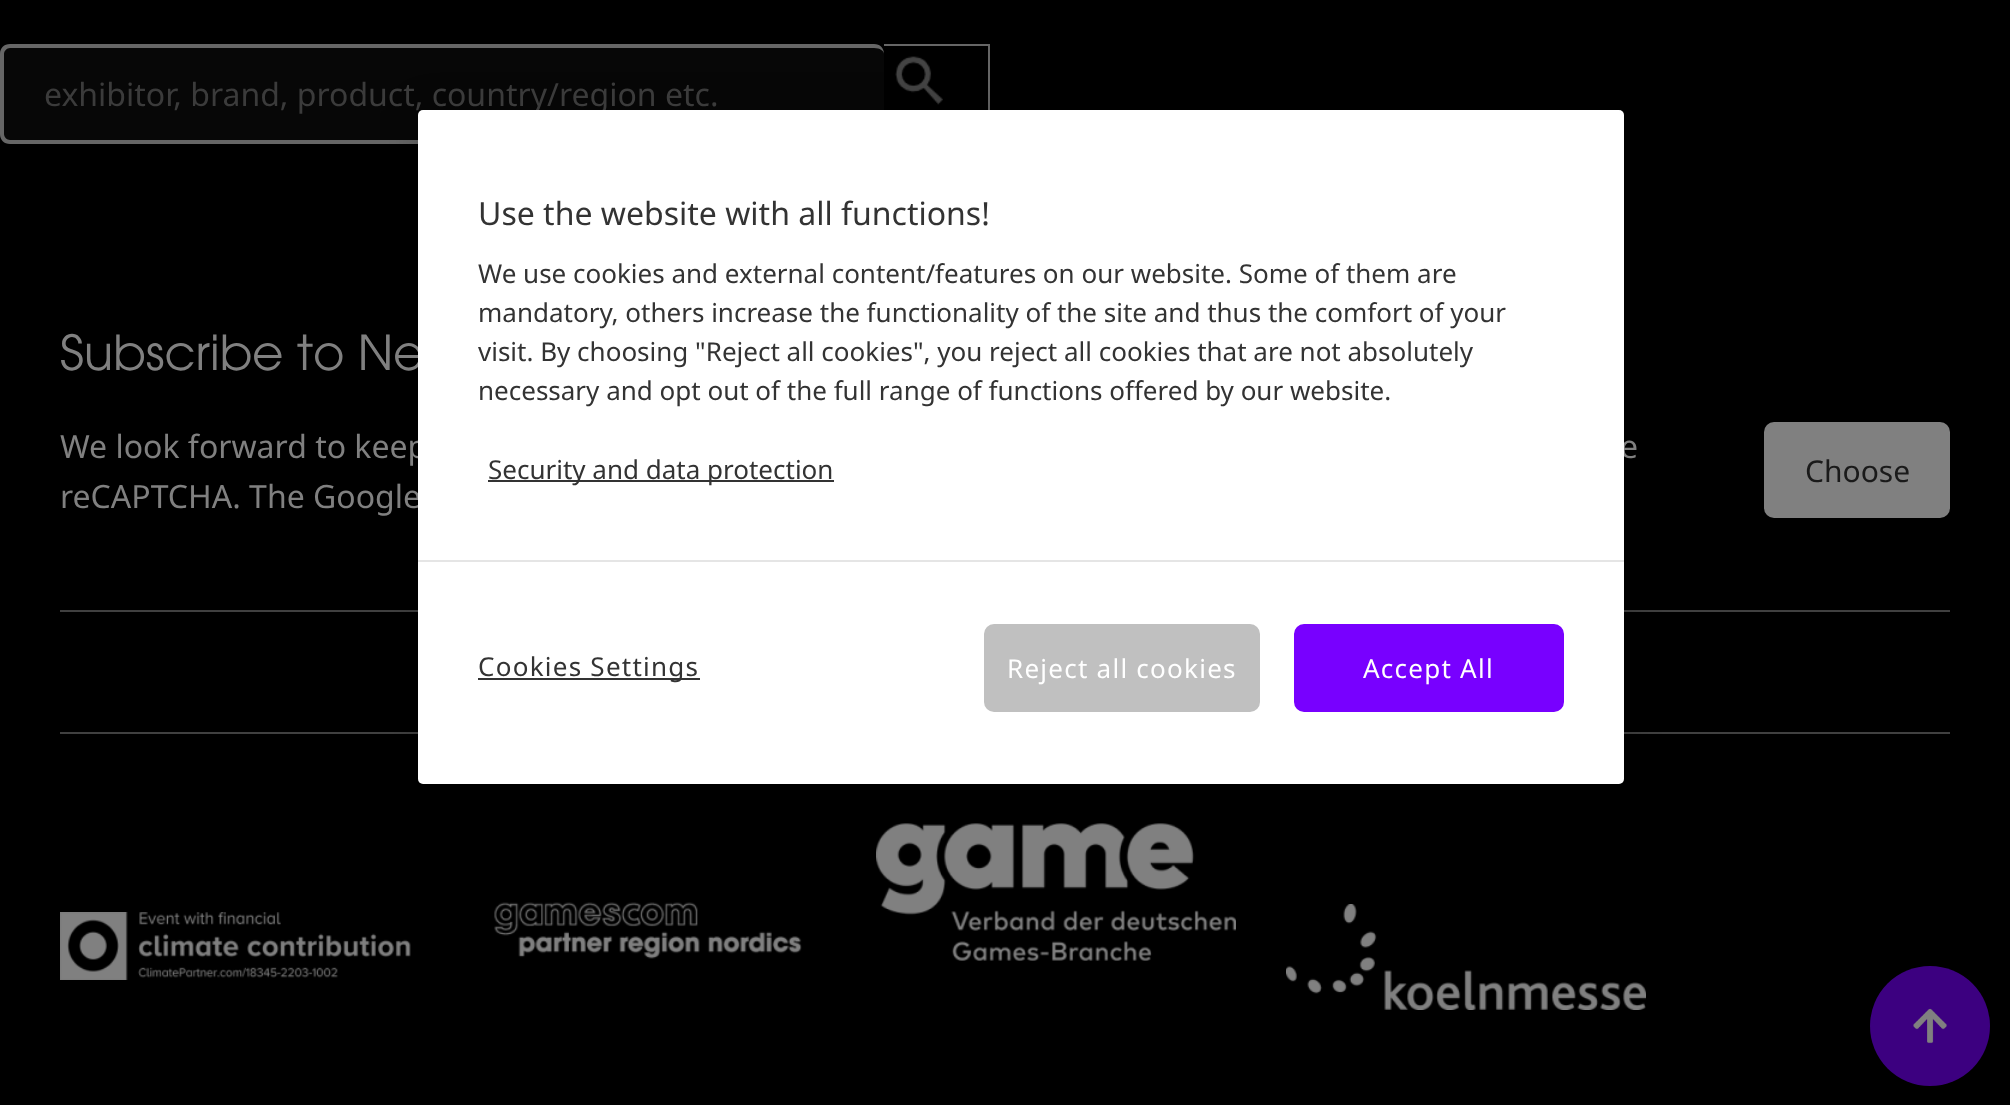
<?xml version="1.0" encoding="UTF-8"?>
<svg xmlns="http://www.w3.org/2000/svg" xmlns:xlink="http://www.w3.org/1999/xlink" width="2010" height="1105">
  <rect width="100%" height="100%" fill="#000000" />
  <rect y="44" width="884" height="100" rx="10" fill="#070707" />
  <path d="M 10 44 h 864 c 6 0 10 4 10 10 v 80 c 0 6 -4 10 -10 10 h -864 c -6 0 -10 -4 -10 -10 v -80 c 0 -6 4 -10 10 -10 z m 0 4 h 864 c 6 0 10 3 10 6 v 80 c 0 3 -4 6 -10 6 h -864 c -3 0 -6 -3 -6 -6 v -80 c 0 -3 3 -6 6 -6 z" fill="#666666" fill-rule="evenodd" />
  <rect x="884" y="44" width="106" height="2" fill="#666666" />
  <rect x="988" y="44" width="2" height="68" fill="#666666" />
  <image x="895" y="56" width="48" height="49" xlink:href="image1.png" />
  <rect x="60" y="610" width="1890" height="2" fill="#404040" />
  <rect x="60" y="732" width="1890" height="2" fill="#404040" />
  <image x="876" y="823" width="360" height="138" xlink:href="image4.png" />
  <rect x="418" y="110" width="1206" height="674" rx="5" fill="#000000" fill-opacity="0.2" filter="blur(18px)" />
  <rect x="1764" y="422" width="186" height="96" rx="10" fill="#808080" />
  <image x="60" y="912" width="351" height="68" xlink:href="image2.png" />
  <image x="494" y="902" width="308" height="57" xlink:href="image3.png" />
  <image x="1286" y="904" width="360" height="106" xlink:href="image5.png" />
  <circle cx="1930" cy="1026" r="60" fill="#3c0080" />
  <image x="1913" y="1008" width="34" height="36" xlink:href="image6.png" />
  <text x="44" y="106" style="font-family: Noto Sans; font-size: 32px; fill: #3b3b3b">exhibitor, brand, product, country/region etc.</text>
  <text x="60" y="370" style="font-family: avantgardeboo; font-size: 48px; fill: #808080">Subscribe to Ne</text>
  <text x="60" y="458" style="font-family: Noto Sans; font-size: 32px; fill: #808080">We look forward to keep</text>
  <text x="1620" y="458" style="font-family: Noto Sans; font-size: 32px; fill: #808080">e</text>
  <text x="60" y="508" style="font-family: Noto Sans; font-size: 32px; fill: #808080">reCAPTCHA. The Google</text>
  <rect x="418" y="110" width="1206" height="674" rx="5" fill="#ffffff" />
  <rect x="478" y="678" width="222" height="2" fill="#333333" />
  <text x="478" y="676" style="font-family: Noto Sans; font-size: 26px; letter-spacing: 1.25px; fill: #333333">Cookies Settings</text>
  <rect x="1295" y="625" width="268" height="86" rx="9" fill="#7800ff" stroke="#7800ff" stroke-width="2" />
  <text x="1363" y="678" style="font-family: Noto Sans; font-size: 26px; letter-spacing: 1.25px; fill: #ffffff">Accept All</text>
  <rect x="984" y="624" width="276" height="88" rx="10" fill="#c0c0c0" />
  <text x="1007" y="678" style="font-family: Noto Sans; font-size: 26px; letter-spacing: 1.25px; fill: #ffffff">Reject all cookies</text>
  <rect x="418" y="560" width="1206" height="2" fill="#e5e5e5" />
  <rect x="488" y="480" width="346" height="2" fill="#333333" />
  <text x="488" y="479" style="font-family: Noto Sans; font-size: 26px; fill: #333333">Security and data protection</text>
  <text x="478" y="400" style="font-family: Noto Sans; font-size: 26px; fill: #333333">necessary and opt out of the full range of functions offered by our website.</text>
  <text x="478" y="361" style="font-family: Noto Sans; font-size: 26px; fill: #333333">visit. By choosing "Reject all cookies", you reject all cookies that are not absolutely</text>
  <text x="478" y="322" style="font-family: Noto Sans; font-size: 26px; fill: #333333">mandatory, others increase the functionality of the site and thus the comfort of your</text>
  <text x="478" y="283" style="font-family: Noto Sans; font-size: 26px; fill: #333333">We use cookies and external content/features on our website. Some of them are</text>
  <text x="478" y="225" style="font-family: Noto Sans; font-size: 32px; fill: #333333">Use the website with all functions!</text>
  <text x="1805" y="482" style="font-family: Noto Sans; font-size: 30px; fill: #1a1a1a">Choose</text>
</svg>
